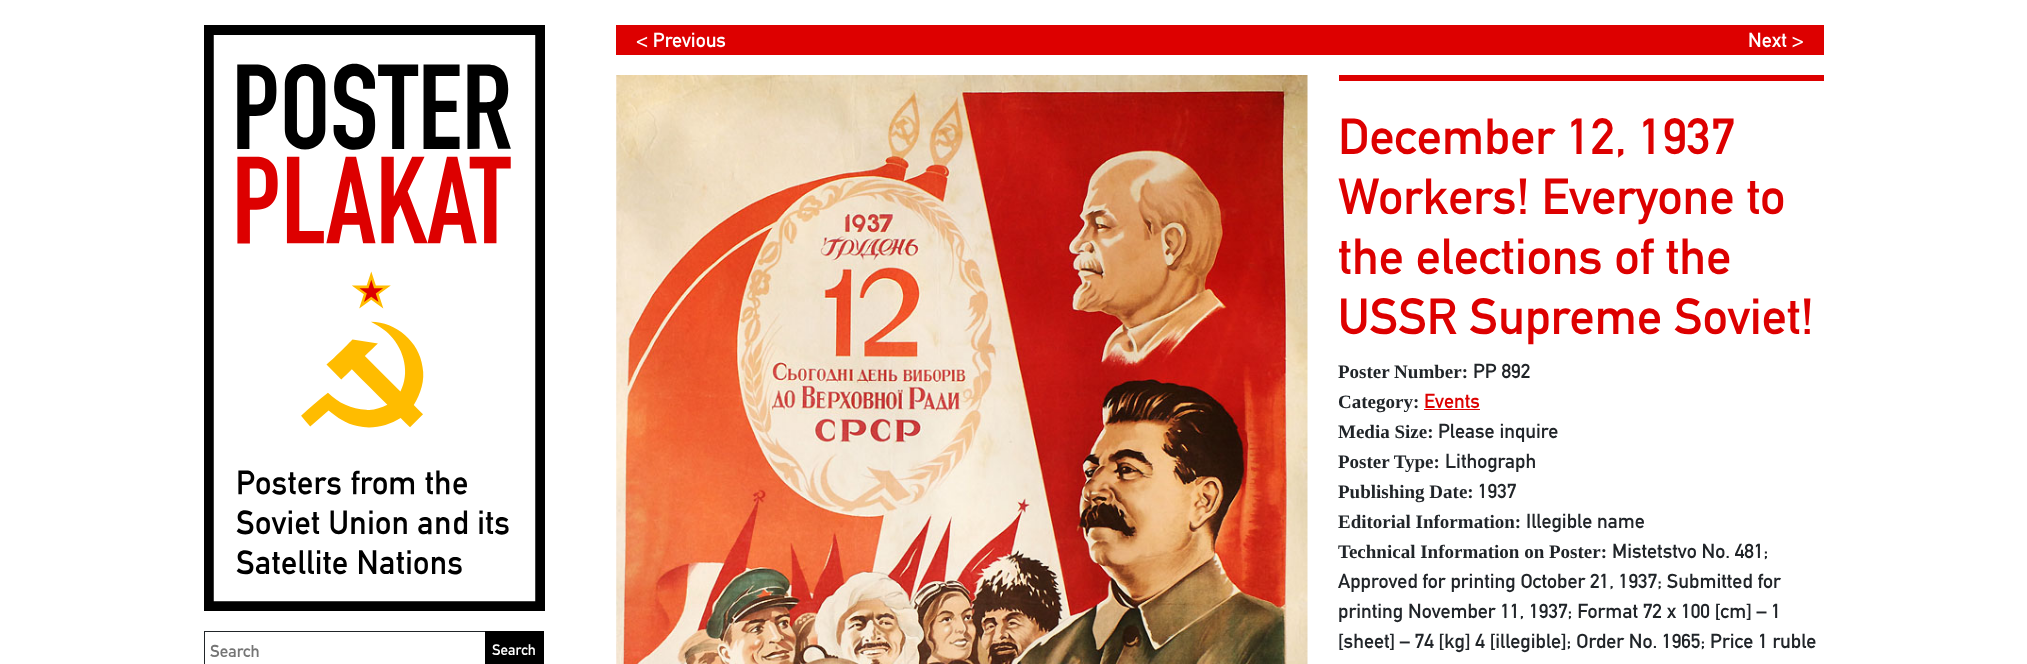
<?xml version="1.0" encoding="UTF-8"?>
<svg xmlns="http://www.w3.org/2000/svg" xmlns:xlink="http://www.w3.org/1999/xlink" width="2027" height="664">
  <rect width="100%" height="100%" fill="#ffffff" />
  <image x="204" y="25" width="341" height="586" xlink:href="image1.png" />
  <rect x="204.5" y="631.5" width="339" height="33" fill="none" stroke="#212529" />
  <rect x="485" y="631" width="59" height="33" fill="#000000" />
  <rect x="616" y="25" width="1208" height="30" fill="#dd0000" />
  <image x="616" y="75" width="692" height="589" xlink:href="image2.png" />
  <rect x="1339" y="75" width="485" height="6" fill="#dd0000" />
  <rect x="1424" y="409" width="56" height="1" fill="#dd0000" />
  <text x="210" y="657" style="font-family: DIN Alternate; font-size: 17px; font-weight: bold; fill: #757575">Search</text>
  <text x="492" y="655" style="font-family: DIN Alternate; font-size: 15px; font-weight: bold; fill: #ffffff">Search</text>
  <text x="636" y="47" style="font-family: DIN Alternate; font-size: 20px; font-weight: bold; fill: #ffffff">&lt; Previous</text>
  <text x="1748" y="47" style="font-family: DIN Alternate; font-size: 20px; font-weight: bold; fill: #ffffff">Next &gt;</text>
  <text x="1338" y="154" style="font-family: DIN Alternate; font-size: 50px; font-weight: bold; fill: #dd0000">December 12, 1937</text>
  <text x="1338" y="214" style="font-family: DIN Alternate; font-size: 50px; font-weight: bold; fill: #dd0000">Workers! Everyone to</text>
  <text x="1338" y="274" style="font-family: DIN Alternate; font-size: 50px; font-weight: bold; fill: #dd0000">the elections of the</text>
  <text x="1338" y="334" style="font-family: DIN Alternate; font-size: 50px; font-weight: bold; fill: #dd0000">USSR Supreme Soviet!</text>
  <text x="1338" y="378" style="font-family: Liberation Serif; font-size: 19px; font-weight: bold; fill: #212529">Poster Number:</text>
  <text x="1473" y="378" style="font-family: DIN Alternate; font-size: 20px; font-weight: bold; fill: #212529">PP 892</text>
  <text x="1338" y="408" style="font-family: Liberation Serif; font-size: 19px; font-weight: bold; fill: #212529">Category:</text>
  <text x="1424" y="408" style="font-family: DIN Alternate; font-size: 20px; font-weight: bold; fill: #dd0000">Events</text>
  <text x="1338" y="438" style="font-family: Liberation Serif; font-size: 19px; font-weight: bold; fill: #212529">Media Size:</text>
  <text x="1438" y="438" style="font-family: DIN Alternate; font-size: 20px; font-weight: bold; fill: #212529">Please inquire</text>
  <text x="1338" y="468" style="font-family: Liberation Serif; font-size: 19px; font-weight: bold; fill: #212529">Poster Type:</text>
  <text x="1445" y="468" style="font-family: DIN Alternate; font-size: 20px; font-weight: bold; fill: #212529">Lithograph</text>
  <text x="1338" y="498" style="font-family: Liberation Serif; font-size: 19px; font-weight: bold; fill: #212529">Publishing Date:</text>
  <text x="1478" y="498" style="font-family: DIN Alternate; font-size: 20px; font-weight: bold; fill: #212529">1937</text>
  <text x="1338" y="528" style="font-family: Liberation Serif; font-size: 19px; font-weight: bold; fill: #212529">Editorial Information:</text>
  <text x="1526" y="528" style="font-family: DIN Alternate; font-size: 20px; font-weight: bold; fill: #212529">Illegible name</text>
  <text x="1338" y="558" style="font-family: Liberation Serif; font-size: 19px; font-weight: bold; fill: #212529">Technical Information on Poster:</text>
  <text x="1612" y="558" style="font-family: DIN Alternate; font-size: 20px; font-weight: bold; fill: #212529">Mistetstvo No. 481;</text>
  <text x="1338" y="588" style="font-family: DIN Alternate; font-size: 20px; font-weight: bold; fill: #212529">Approved for printing October 21, 1937; Submitted for</text>
  <text x="1338" y="618" style="font-family: DIN Alternate; font-size: 20px; font-weight: bold; fill: #212529">printing November 11, 1937; Format 72 x 100 [cm] – 1</text>
  <text x="1338" y="648" style="font-family: DIN Alternate; font-size: 20px; font-weight: bold; fill: #212529">[sheet] – 74 [kg] 4 [illegible]; Order No. 1965; Price 1 ruble</text>
</svg>
